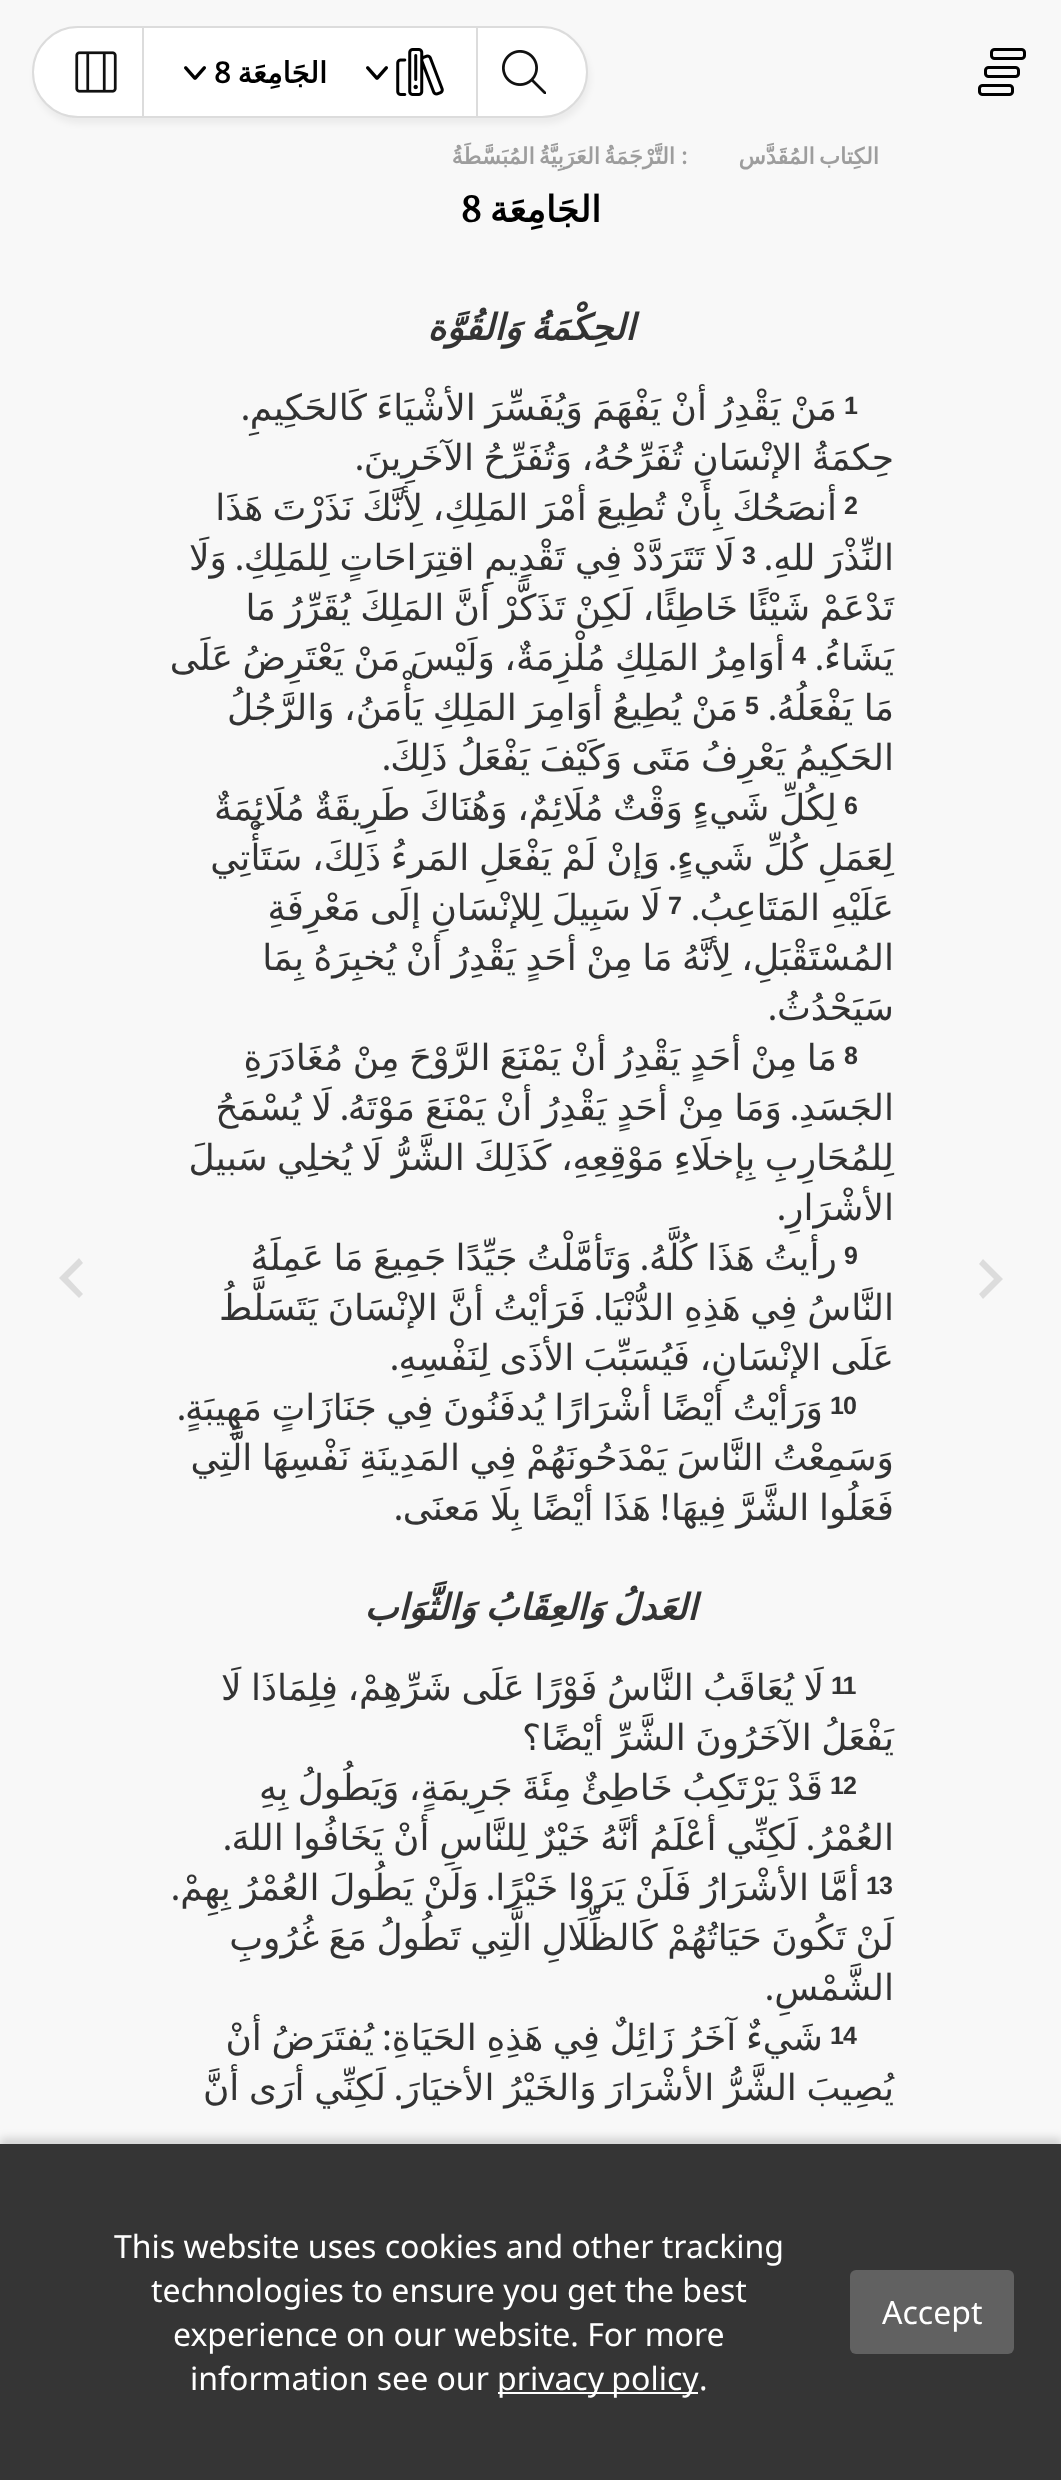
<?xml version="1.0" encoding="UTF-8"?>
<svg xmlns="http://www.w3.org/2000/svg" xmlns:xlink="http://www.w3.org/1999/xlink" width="1061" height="2480">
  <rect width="100%" height="100%" fill="#f8f8f8" />
  <image x="978" y="48" width="48" height="48" xlink:href="image1.png" />
  <rect x="34" y="32" width="556" height="92" rx="46" fill="#000000" fill-opacity="0.05" filter="blur(3px)" />
  <rect x="33" y="27" width="554" height="90" rx="45" fill="#ffffff" stroke="#dcdcdc" stroke-width="2" />
  <rect x="476" y="28" width="2" height="88" fill="#dcdcdc" />
  <image x="502" y="50" width="44" height="44" xlink:href="image2.png" />
  <image x="396" y="48" width="48" height="48" xlink:href="image3.png" />
  <image x="366" y="66" width="22" height="14" xlink:href="image4.png" />
  <image x="184" y="66" width="22" height="14" xlink:href="image4.png" />
  <rect x="142" y="28" width="2" height="88" fill="#dcdcdc" />
  <image x="75" y="51" width="42" height="42" xlink:href="image5.png" />
  <path d="M 979 1294 l 15 -15 l -15 -15 l 4 -5 l 20 20 l -20 20 z" fill="#dcdcdc" />
  <path d="M 83 1294 l -15 -16 l 15 -15 l -4 -5 l -20 20 l 20 20 z" fill="#dcdcdc" />
  <rect y="2138" width="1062" height="336" fill="#000000" fill-opacity="0.15" filter="blur(4px)" />
  <rect y="2144" width="1061" height="336" fill="#353535" />
  <rect x="850" y="2270" width="164" height="84" rx="6" fill="#616161" />
  <rect x="498" y="2392" width="200" height="2" fill="#ffffff" />
  <text x="327" y="83" style="font-family: DejaVu Sans; font-size: 29px; font-weight: bold; direction: rtl; fill: #000000">الجَامِعَة</text>
  <text x="214" y="83" style="font-family: Noto Sans; font-size: 29px; font-weight: bold; fill: #000000">8</text>
  <text x="879" y="164" word-spacing="-3" style="font-family: DejaVu Sans; font-size: 22.4px; font-weight: bold; letter-spacing: 2.7px; direction: rtl; fill: #9d9d9d">الكِتاب المُقَدَّس</text>
  <text x="690" y="164" style="font-family: Noto Serif; font-size: 22.4px; font-weight: bold; letter-spacing: 2.7px; direction: rtl; fill: #9d9d9d">:</text>
  <text x="675" y="164" word-spacing="-3" style="font-family: DejaVu Sans; font-size: 22.4px; font-weight: bold; letter-spacing: 2.7px; direction: rtl; fill: #9d9d9d">التَّرْجَمَةُ العَرَبِيَّةُ المُبَسَّطَةُ</text>
  <text x="601" y="222" style="font-family: DejaVu Sans; font-size: 36px; font-weight: bold; direction: rtl; fill: #000000">الجَامِعَة</text>
  <text x="461" y="222" style="font-family: Noto Serif; font-size: 36px; font-weight: bold; fill: #000000">8</text>
  <text x="635" y="340" word-spacing="-2" style="font-family: DejaVu Sans; font-size: 36px; font-weight: bold; font-style: italic; direction: rtl; fill: #333333">الحِكْمَةُ وَالقُوَّة</text>
  <text x="844" y="414" style="font-family: Liberation Sans; font-size: 25px; font-weight: bold; letter-spacing: -1px; fill: #333333">1</text>
  <text x="837" y="420" word-spacing="-2" style="font-family: DejaVu Sans; font-size: 36px; direction: rtl; fill: #333333">مَنْ يَقْدِرُ أنْ يَفْهَمَ وَيُفَسِّرَ الأشْيَاءَ كَالحَكِيمِ</text>
  <text x="250" y="420" style="font-family: Noto Serif; font-size: 36px; direction: rtl; fill: #333333">.</text>
  <text x="894" y="470" word-spacing="-2" style="font-family: DejaVu Sans; font-size: 36px; direction: rtl; fill: #333333">حِكمَةُ الإنْسَانِ تُفَرِّحُهُ، وَتُفَرِّحُ الآخَرِينَ</text>
  <text x="364" y="470" style="font-family: Noto Serif; font-size: 36px; direction: rtl; fill: #333333">.</text>
  <text x="844" y="514" style="font-family: Liberation Sans; font-size: 25px; font-weight: bold; letter-spacing: -1px; fill: #333333">2</text>
  <text x="837" y="520" word-spacing="-2" style="font-family: DejaVu Sans; font-size: 36px; direction: rtl; fill: #333333">أنصَحُكَ بِأنْ تُطِيعَ أمْرَ المَلِكِ، لِأنَّكَ نَذَرْتَ هَذَا</text>
  <text x="894" y="570" word-spacing="-1" style="font-family: DejaVu Sans; font-size: 36px; direction: rtl; fill: #333333">النِّذْرَ للهِ</text>
  <text x="742" y="564" style="font-family: Liberation Sans; font-size: 25px; font-weight: bold; letter-spacing: -1px; fill: #333333">3</text>
  <text x="735" y="570" word-spacing="-1.75" style="font-family: DejaVu Sans; font-size: 36px; direction: rtl; fill: #333333">لَا تَتَرَدَّدْ فِي تَقْدِيمِ اقتِرَاحَاتٍ لِلمَلِكِ</text>
  <text x="227" y="570" style="font-family: DejaVu Sans; font-size: 36px; direction: rtl; fill: #333333">وَلَا</text>
  <text x="773" y="570" style="font-family: Noto Serif; font-size: 36px; direction: rtl; fill: #333333">.</text>
  <text x="244" y="570" style="font-family: Noto Serif; font-size: 36px; direction: rtl; fill: #333333">.</text>
  <text x="894" y="620" word-spacing="-2" style="font-family: DejaVu Sans; font-size: 36px; direction: rtl; fill: #333333">تَدْعَمْ شَيْئًا خَاطِئًا، لَكِنْ تَذَكَّرْ أنَّ المَلِكَ يُقَرِّرُ مَا</text>
  <text x="894" y="670" style="font-family: DejaVu Sans; font-size: 36px; direction: rtl; fill: #333333">يَشَاءُ</text>
  <text x="792" y="664" style="font-family: Liberation Sans; font-size: 25px; font-weight: bold; letter-spacing: -1px; fill: #333333">4</text>
  <text x="785" y="670" word-spacing="-2" style="font-family: DejaVu Sans; font-size: 36px; direction: rtl; fill: #333333">أوَامِرُ المَلِكِ مُلْزِمَةٌ، وَلَيْسَ مَنْ يَعْتَرِضُ عَلَى</text>
  <text x="824" y="670" style="font-family: Noto Serif; font-size: 36px; direction: rtl; fill: #333333">.</text>
  <text x="894" y="720" word-spacing="-1" style="font-family: DejaVu Sans; font-size: 36px; direction: rtl; fill: #333333">مَا يَفْعَلُهُ</text>
  <text x="745" y="714" style="font-family: Liberation Sans; font-size: 25px; font-weight: bold; letter-spacing: -1px; fill: #333333">5</text>
  <text x="738" y="720" word-spacing="-2" style="font-family: DejaVu Sans; font-size: 36px; direction: rtl; fill: #333333">مَنْ يُطِيعُ أوَامِرَ المَلِكِ يَأْمَنُ، وَالرَّجُلُ</text>
  <text x="777" y="720" style="font-family: Noto Serif; font-size: 36px; direction: rtl; fill: #333333">.</text>
  <text x="894" y="770" word-spacing="-2" style="font-family: DejaVu Sans; font-size: 36px; direction: rtl; fill: #333333">الحَكِيمُ يَعْرِفُ مَتَى وَكَيْفَ يَفْعَلُ ذَلِكَ</text>
  <text x="391" y="770" style="font-family: Noto Serif; font-size: 36px; direction: rtl; fill: #333333">.</text>
  <text x="844" y="814" style="font-family: Liberation Sans; font-size: 25px; font-weight: bold; letter-spacing: -1px; fill: #333333">6</text>
  <text x="837" y="820" word-spacing="-2" style="font-family: DejaVu Sans; font-size: 36px; direction: rtl; fill: #333333">لِكُلِّ شَيءٍ وَقْتٌ مُلَائِمٌ، وَهُنَاكَ طَرِيقَةٌ مُلَائِمَةٌ</text>
  <text x="894" y="870" word-spacing="-1.75" style="font-family: DejaVu Sans; font-size: 36px; direction: rtl; fill: #333333">لِعَمَلِ كُلِّ شَيءٍ</text>
  <text x="677" y="870" style="font-family: Noto Serif; font-size: 36px; direction: rtl; fill: #333333">.</text>
  <text x="660" y="870" word-spacing="-1.75" style="font-family: DejaVu Sans; font-size: 36px; direction: rtl; fill: #333333">وَإنْ لَمْ يَفْعَلِ المَرءُ ذَلِكَ، سَتَأْتِي</text>
  <text x="894" y="920" word-spacing="-1" style="font-family: DejaVu Sans; font-size: 36px; direction: rtl; fill: #333333">عَلَيْهِ المَتَاعِبُ</text>
  <text x="668" y="914" style="font-family: Liberation Sans; font-size: 25px; font-weight: bold; letter-spacing: -1px; fill: #333333">7</text>
  <text x="661" y="920" word-spacing="-2" style="font-family: DejaVu Sans; font-size: 36px; direction: rtl; fill: #333333">لَا سَبِيلَ لِلإنْسَانِ إلَى مَعْرِفَةِ</text>
  <text x="700" y="920" style="font-family: Noto Serif; font-size: 36px; direction: rtl; fill: #333333">.</text>
  <text x="894" y="970" word-spacing="-2" style="font-family: DejaVu Sans; font-size: 36px; direction: rtl; fill: #333333">المُسْتَقْبَلِ، لِأنَّهُ مَا مِنْ أحَدٍ يَقْدِرُ أنْ يُخبِرَهُ بِمَا</text>
  <text x="894" y="1020" style="font-family: DejaVu Sans; font-size: 36px; direction: rtl; fill: #333333">سَيَحْدُثُ</text>
  <text x="777" y="1020" style="font-family: Noto Serif; font-size: 36px; direction: rtl; fill: #333333">.</text>
  <text x="844" y="1064" style="font-family: Liberation Sans; font-size: 25px; font-weight: bold; letter-spacing: -1px; fill: #333333">8</text>
  <text x="837" y="1070" word-spacing="-2" style="font-family: DejaVu Sans; font-size: 36px; direction: rtl; fill: #333333">مَا مِنْ أحَدٍ يَقْدِرُ أنْ يَمْنَعَ الرَّوْحَ مِنْ مُغَادَرَةِ</text>
  <text x="894" y="1120" style="font-family: DejaVu Sans; font-size: 36px; direction: rtl; fill: #333333">الجَسَدِ</text>
  <text x="799" y="1120" style="font-family: Noto Serif; font-size: 36px; direction: rtl; fill: #333333">.</text>
  <text x="782" y="1120" word-spacing="-1.5" style="font-family: DejaVu Sans; font-size: 36px; direction: rtl; fill: #333333">وَمَا مِنْ أحَدٍ يَقْدِرُ أنْ يَمْنَعَ مَوْتَهُ</text>
  <text x="349" y="1120" style="font-family: Noto Serif; font-size: 36px; direction: rtl; fill: #333333">.</text>
  <text x="332" y="1120" word-spacing="-1.5" style="font-family: DejaVu Sans; font-size: 36px; direction: rtl; fill: #333333">لَا يُسْمَحُ</text>
  <text x="894" y="1170" word-spacing="-2" style="font-family: DejaVu Sans; font-size: 36px; direction: rtl; fill: #333333">لِلمُحَارِبِ بِإخلَاءِ مَوْقِعِهِ، كَذَلِكَ الشَّرُّ لَا يُخلِي سَبيلَ</text>
  <text x="894" y="1220" style="font-family: DejaVu Sans; font-size: 36px; direction: rtl; fill: #333333">الأشْرَارِ</text>
  <text x="786" y="1220" style="font-family: Noto Serif; font-size: 36px; direction: rtl; fill: #333333">.</text>
  <text x="844" y="1264" style="font-family: Liberation Sans; font-size: 25px; font-weight: bold; letter-spacing: -1px; fill: #333333">9</text>
  <text x="837" y="1270" word-spacing="-2" style="font-family: DejaVu Sans; font-size: 36px; direction: rtl; fill: #333333">رأيتُ هَذَا كُلَّهُ</text>
  <text x="632" y="1270" word-spacing="-2" style="font-family: DejaVu Sans; font-size: 36px; direction: rtl; fill: #333333">وَتَأمَّلْتُ جَيِّدًا جَمِيعَ مَا عَمِلَهُ</text>
  <text x="649" y="1270" style="font-family: Noto Serif; font-size: 36px; direction: rtl; fill: #333333">.</text>
  <text x="894" y="1320" word-spacing="-1.75" style="font-family: DejaVu Sans; font-size: 36px; direction: rtl; fill: #333333">النَّاسُ فِي هَذِهِ الدُّنْيَا</text>
  <text x="603" y="1320" style="font-family: Noto Serif; font-size: 36px; direction: rtl; fill: #333333">.</text>
  <text x="586" y="1320" word-spacing="-1.75" style="font-family: DejaVu Sans; font-size: 36px; direction: rtl; fill: #333333">فَرَأيْتُ أنَّ الإنْسَانَ يَتَسَلَّطُ</text>
  <text x="894" y="1370" word-spacing="-2" style="font-family: DejaVu Sans; font-size: 36px; direction: rtl; fill: #333333">عَلَى الإنْسَانِ، فَيُسَبِّبَ الأذَى لِنَفْسِهِ</text>
  <text x="399" y="1370" style="font-family: Noto Serif; font-size: 36px; direction: rtl; fill: #333333">.</text>
  <text x="830" y="1414" style="font-family: Liberation Sans; font-size: 25px; font-weight: bold; letter-spacing: -1px; fill: #333333">10</text>
  <text x="823" y="1420" word-spacing="-2" style="font-family: DejaVu Sans; font-size: 36px; direction: rtl; fill: #333333">وَرَأيْتُ أيْضًا أشْرَارًا يُدفَنُونَ فِي جَنَازَاتٍ مَهِيبَةٍ</text>
  <text x="186" y="1420" style="font-family: Noto Serif; font-size: 36px; direction: rtl; fill: #333333">.</text>
  <text x="894" y="1470" word-spacing="-2" style="font-family: DejaVu Sans; font-size: 36px; direction: rtl; fill: #333333">وَسَمِعْتُ النَّاسَ يَمْدَحُونَهُمْ فِي المَدِينَةِ نَفْسِهَا الَّتِي</text>
  <text x="894" y="1520" word-spacing="-1.75" style="font-family: DejaVu Sans; font-size: 36px; direction: rtl; fill: #333333">فَعَلُوا الشَّرَّ فِيهَا</text>
  <text x="671" y="1520" style="font-family: Noto Serif; font-size: 36px; direction: rtl; fill: #333333">!</text>
  <text x="651" y="1520" word-spacing="-1.75" style="font-family: DejaVu Sans; font-size: 36px; direction: rtl; fill: #333333">هَذَا أيْضًا بِلَا مَعنَى</text>
  <text x="403" y="1520" style="font-family: Noto Serif; font-size: 36px; direction: rtl; fill: #333333">.</text>
  <text x="697" y="1620" word-spacing="-2" style="font-family: DejaVu Sans; font-size: 36px; font-weight: bold; font-style: italic; direction: rtl; fill: #333333">العَدلُ وَالعِقَابُ وَالثَّوَاب</text>
  <text x="831" y="1694" style="font-family: Liberation Sans; font-size: 25px; font-weight: bold; letter-spacing: -1px; fill: #333333">11</text>
  <text x="824" y="1700" word-spacing="-2" style="font-family: DejaVu Sans; font-size: 36px; direction: rtl; fill: #333333">لَا يُعَاقَبُ النَّاسُ فَوْرًا عَلَى شَرِّهِمْ، فِلِمَاذَا لَا</text>
  <text x="894" y="1750" word-spacing="-2" style="font-family: DejaVu Sans; font-size: 36px; direction: rtl; fill: #333333">يَفْعَلُ الآخَرُونَ الشَّرِّ أيْضًا؟</text>
  <text x="830" y="1794" style="font-family: Liberation Sans; font-size: 25px; font-weight: bold; letter-spacing: -1px; fill: #333333">12</text>
  <text x="823" y="1800" word-spacing="-2" style="font-family: DejaVu Sans; font-size: 36px; direction: rtl; fill: #333333">قَدْ يَرْتَكِبُ خَاطِئٌ مِئَةَ جَرِيمَةٍ، وَيَطُولُ بِهِ</text>
  <text x="894" y="1850" style="font-family: DejaVu Sans; font-size: 36px; direction: rtl; fill: #333333">العُمْرُ</text>
  <text x="798" y="1850" word-spacing="-1.75" style="font-family: DejaVu Sans; font-size: 36px; direction: rtl; fill: #333333">لَكِنِّي أعْلَمُ أنَّهُ خَيْرٌ لِلنَّاسِ أنْ يَخَافُوا اللهَ</text>
  <text x="232" y="1850" style="font-family: Noto Serif; font-size: 36px; direction: rtl; fill: #333333">.</text>
  <text x="815" y="1850" style="font-family: Noto Serif; font-size: 36px; direction: rtl; fill: #333333">.</text>
  <text x="866" y="1894" style="font-family: Liberation Sans; font-size: 25px; font-weight: bold; letter-spacing: -1px; fill: #333333">13</text>
  <text x="859" y="1900" word-spacing="-1.75" style="font-family: DejaVu Sans; font-size: 36px; direction: rtl; fill: #333333">أمَّا الأشْرَارُ فَلَنْ يَرَوْا خَيْرًا</text>
  <text x="479" y="1900" word-spacing="-1.75" style="font-family: DejaVu Sans; font-size: 36px; direction: rtl; fill: #333333">وَلَنْ يَطُولَ العُمْرُ بِهِمْ</text>
  <text x="495" y="1900" style="font-family: Noto Serif; font-size: 36px; direction: rtl; fill: #333333">.</text>
  <text x="180" y="1900" style="font-family: Noto Serif; font-size: 36px; direction: rtl; fill: #333333">.</text>
  <text x="894" y="1950" word-spacing="-2" style="font-family: DejaVu Sans; font-size: 36px; direction: rtl; fill: #333333">لَنْ تَكُونَ حَيَاتُهُمْ كَالظِّلَالِ الَّتِي تَطُولُ مَعَ غُرُوبِ</text>
  <text x="894" y="2000" style="font-family: DejaVu Sans; font-size: 36px; direction: rtl; fill: #333333">الشَّمْسِ</text>
  <text x="774" y="2000" style="font-family: Noto Serif; font-size: 36px; direction: rtl; fill: #333333">.</text>
  <text x="830" y="2044" style="font-family: Liberation Sans; font-size: 25px; font-weight: bold; letter-spacing: -1px; fill: #333333">14</text>
  <text x="823" y="2050" word-spacing="-1.75" style="font-family: DejaVu Sans; font-size: 36px; direction: rtl; fill: #333333">شَيءٌ آخَرُ زَائِلٌ فِي هَذِهِ الحَيَاةِ</text>
  <text x="392" y="2050" style="font-family: Noto Serif; font-size: 36px; direction: rtl; fill: #333333">:</text>
  <text x="374" y="2050" word-spacing="-1.75" style="font-family: DejaVu Sans; font-size: 36px; direction: rtl; fill: #333333">يُفتَرَضُ أنْ</text>
  <text x="894" y="2100" word-spacing="-1.75" style="font-family: DejaVu Sans; font-size: 36px; direction: rtl; fill: #333333">يُصِيبَ الشَّرُّ الأشْرَارَ وَالخَيْرُ الأخيَارَ</text>
  <text x="403" y="2100" style="font-family: Noto Serif; font-size: 36px; direction: rtl; fill: #333333">.</text>
  <text x="386" y="2100" word-spacing="-1.75" style="font-family: DejaVu Sans; font-size: 36px; direction: rtl; fill: #333333">لَكِنِّي أرَى أنَّ</text>
  <text x="882" y="2324" style="font-family: Noto Sans; font-size: 32px; fill: #ffffff">Accept</text>
  <text x="114" y="2258" style="font-family: Noto Sans; font-size: 32px; fill: #ffffff">This website uses cookies and other tracking</text>
  <text x="151" y="2302" style="font-family: Noto Sans; font-size: 32px; fill: #ffffff">technologies to ensure you get the best</text>
  <text x="173" y="2346" style="font-family: Noto Sans; font-size: 32px; fill: #ffffff">experience on our website. For more</text>
  <text x="699" y="2390" style="font-family: Noto Sans; font-size: 32px; fill: #ffffff">.</text>
  <text x="497" y="2390" word-spacing="-1" style="font-family: Noto Sans; font-size: 32px; fill: #ffffff">privacy policy</text>
  <text x="190" y="2390" style="font-family: Noto Sans; font-size: 32px; fill: #ffffff">information see our</text>
</svg>
